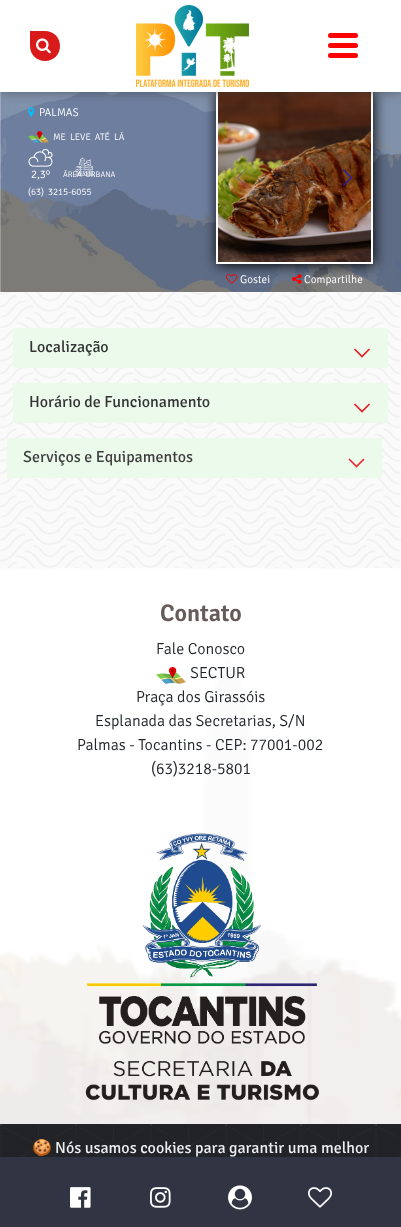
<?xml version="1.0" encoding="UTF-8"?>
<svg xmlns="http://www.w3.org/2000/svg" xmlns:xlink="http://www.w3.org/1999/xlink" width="401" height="1227">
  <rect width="100%" height="100%" fill="#ffffff" />
  <image x="0" y="292" width="401" height="276" xlink:href="image1.png" />
  <image x="0" y="92" width="401" height="200" xlink:href="image4.png" />
  <image x="28" y="107" width="7" height="10" xlink:href="image5.png" />
  <image x="226" y="274" width="12" height="10" xlink:href="image12.png" />
  <image x="292" y="274" width="10" height="10" xlink:href="image13.png" />
  <rect x="217" y="91" width="157" height="174" fill="#000000" filter="blur(6.5px)" />
  <rect x="217" y="91" width="155" height="172" fill="none" stroke="#ffffff" stroke-width="2" />
  <image x="218" y="92" width="153" height="170" xlink:href="image9.png" />
  <rect x="1" y="-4" width="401" height="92" fill="#333333" filter="blur(7px)" />
  <rect width="401" height="92" fill="#ffffff" />
  <path d="M 30 31 h 15 c 8.5 0 15 6.5 15 15 c 0 8.5 -6.5 15 -15 15 c -8.5 0 -15 -6.5 -15 -15 z" fill="#d81a1a" />
  <image x="36" y="38" width="15" height="16" xlink:href="image2.png" />
  <image x="136" y="5" width="113" height="82" xlink:href="image3.png" />
  <rect x="328" y="33" width="30" height="5" rx="2.5" fill="#ff0000" />
  <rect x="328" y="43" width="30" height="5" rx="2.5" fill="#ff0000" />
  <rect x="328" y="53" width="30" height="5" rx="2.5" fill="#ff0000" />
  <image x="28" y="131" width="21" height="12" xlink:href="image6.png" />
  <image x="28" y="149" width="25" height="18" xlink:href="image7.png" />
  <image x="237" y="169" width="9" height="17" xlink:href="image10.png" />
  <image x="343" y="169" width="9" height="17" xlink:href="image11.png" />
  <rect x="13" y="328" width="375" height="40" fill="#ebfaeb" />
  <path d="M 369.5 349 l -7.5 7.5 l -7.5 -7.5" fill="none" stroke="#ed1d24" stroke-width="1.7" />
  <rect x="13" y="383" width="375" height="40" fill="#ebfaeb" />
  <path d="M 369.5 404 l -7.5 7.5 l -7.5 -7.5" fill="none" stroke="#ed1d24" stroke-width="1.7" />
  <rect x="7" y="438" width="375" height="40" fill="#ebfaeb" fill-opacity="0.94" />
  <path d="M 364 459 l -7.5 7.5 l -7.5 -7.5" fill="none" stroke="#ed2a2f" stroke-width="1.7" />
  <image x="0" y="568" width="401" height="556" xlink:href="image14.png" />
  <image x="156" y="667" width="30" height="17" xlink:href="image15.png" />
  <image x="85" y="833" width="235" height="268" xlink:href="image16.png" />
  <image x="0" y="1124" width="401" height="33" xlink:href="image17.png" />
  <rect y="1157" width="401" height="70" fill="#313443" />
  <image x="70" y="1187" width="21" height="21" xlink:href="image18.png" />
  <image x="150" y="1187" width="21" height="21" xlink:href="image19.png" />
  <image x="228" y="1185" width="24" height="25" xlink:href="image20.png" />
  <image x="308" y="1187" width="24" height="21" xlink:href="image21.png" />
  <text x="39" y="116" style="font-family: Signika; font-size: 11.25px; font-weight: 300; fill: #ffffff">PALMAS</text>
  <text x="53" y="140" word-spacing="2" style="font-family: Signika; font-size: 9.5px; font-weight: 300; fill: #ffffff">ME LEVE ATÉ LÁ</text>
  <text x="31" y="178" style="font-family: Signika; font-size: 11.25px; font-weight: 300; fill: #ffffff">2,3º</text>
  <text x="63" y="177" word-spacing="2" style="font-family: Signika; font-size: 8px; font-weight: 300; fill: #ffffff">ÁREA URBANA</text>
  <image x="75" y="157" width="19" height="19" xlink:href="image8.png" />
  <text x="28" y="195" word-spacing="2" style="font-family: Signika; font-size: 9.5px; font-weight: 300; fill: #ffffff">(63) 3215-6055</text>
  <text x="240" y="283" style="font-family: Signika; font-size: 11.25px; font-weight: 300; fill: #ffffff">Gostei</text>
  <text x="304" y="283" style="font-family: Signika; font-size: 11.25px; font-weight: 300; fill: #ffffff">Compartilhe</text>
  <text x="29" y="352" style="font-family: Signika; font-size: 16px; fill: #333333">Localização</text>
  <text x="29" y="407" style="font-family: Signika; font-size: 16px; fill: #333333">Horário de Funcionamento</text>
  <text x="23" y="462" style="font-family: Signika; font-size: 16px; fill: #3e3e3e">Serviços e Equipamentos</text>
  <text x="160" y="621" style="font-family: Signika; font-size: 24px; font-weight: 600; fill: #665a5a">Contato</text>
  <text x="156" y="654" style="font-family: Signika; font-size: 16px; font-weight: 300; fill: #212529">Fale Conosco</text>
  <text x="190" y="678" style="font-family: Signika; font-size: 16px; font-weight: 300; fill: #212529">SECTUR</text>
  <text x="136" y="702" style="font-family: Signika; font-size: 16px; font-weight: 300; fill: #212529">Praça dos Girassóis</text>
  <text x="95" y="726" style="font-family: Signika; font-size: 16px; font-weight: 300; fill: #212529">Esplanada das Secretarias, S/N</text>
  <text x="77" y="750" style="font-family: Signika; font-size: 16px; font-weight: 300; fill: #212529">Palmas - Tocantins - CEP: 77001-002</text>
  <text x="151" y="774" style="font-family: Signika; font-size: 16px; font-weight: 300; fill: #212529">(63)3218-5801</text>
  <text x="32" y="1153" style="font-family: Noto Color Emoji; font-size: 16px; fill: #ecf0f1">🍪</text>
  <text x="55" y="1153" style="font-family: Signika; font-size: 16px; fill: #ecf0f1">Nós usamos cookies para garantir uma melhor</text>
</svg>
